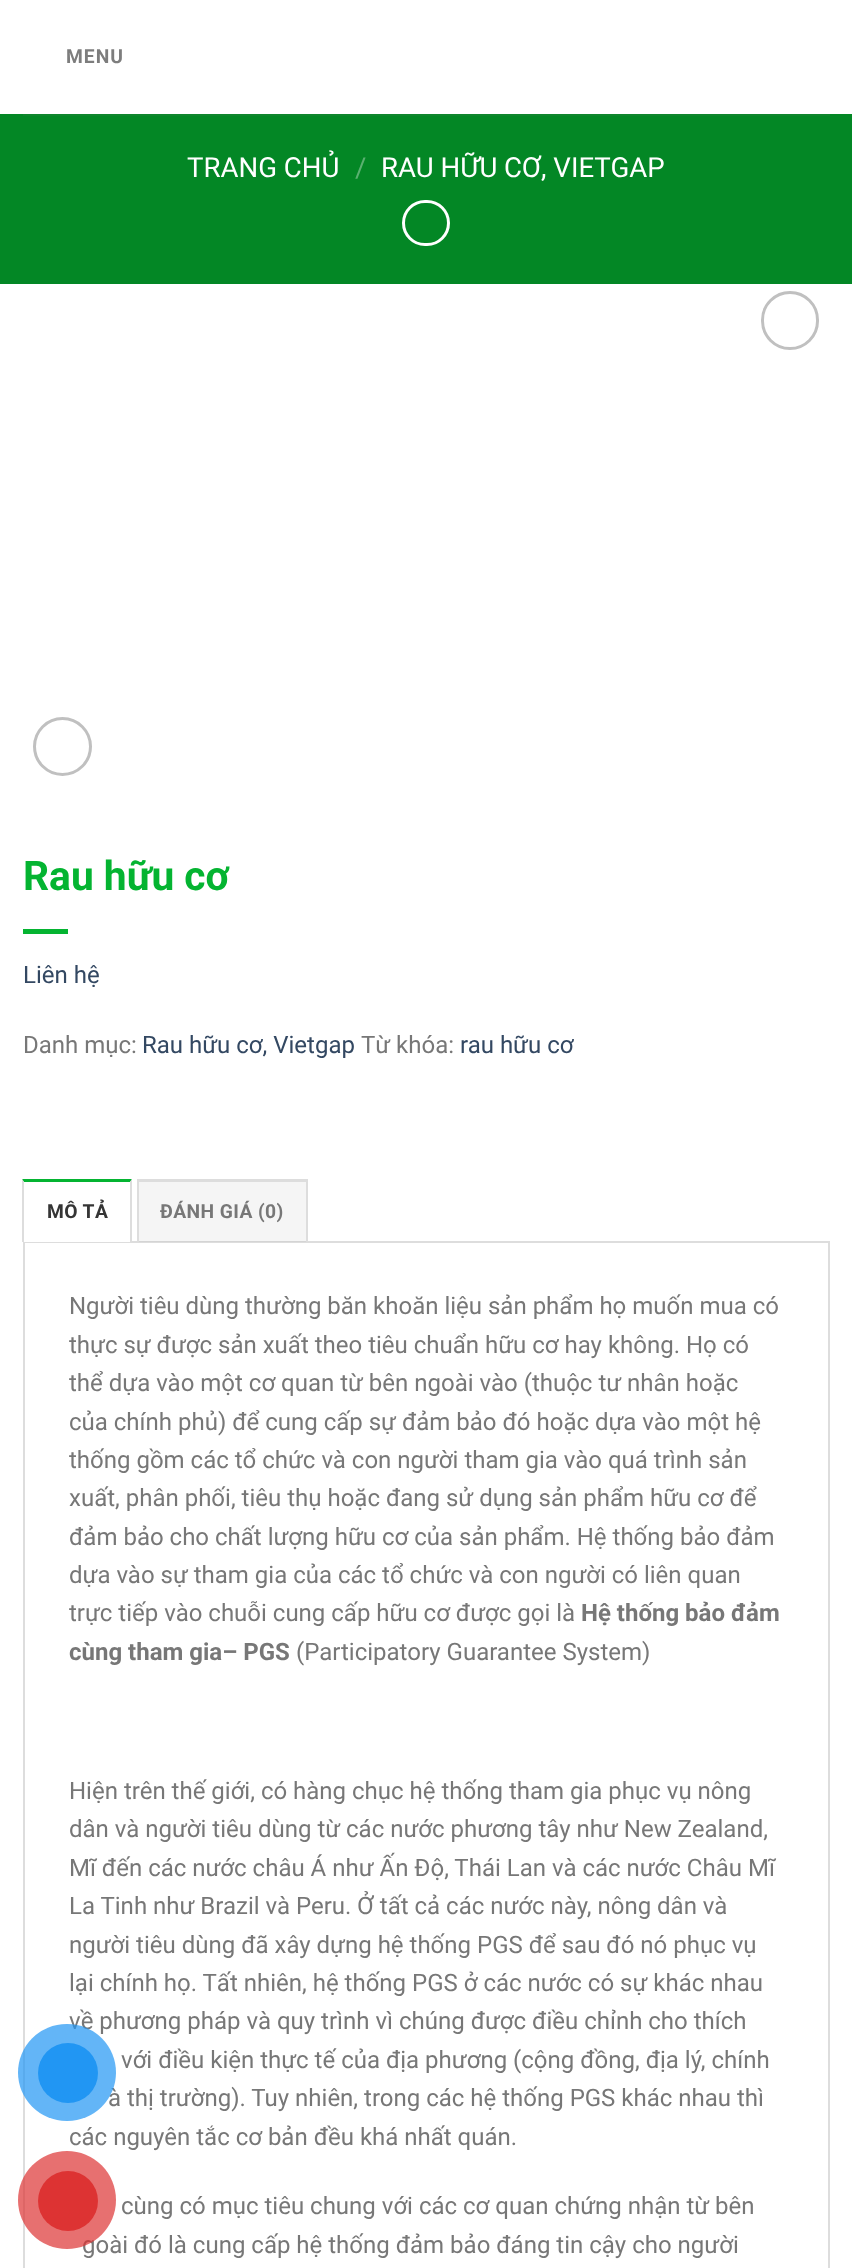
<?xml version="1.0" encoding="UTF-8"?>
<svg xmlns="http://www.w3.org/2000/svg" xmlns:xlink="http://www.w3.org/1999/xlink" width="852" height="2268">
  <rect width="100%" height="100%" fill="#ffffff" />
  <rect y="114" width="852" height="170" fill="#038725" />
  <rect x="23" y="114" width="807" height="2" fill="#0f852d" />
  <rect x="403.5" y="201.5" width="45" height="43" rx="21.5" fill="none" stroke="#ffffff" stroke-width="3" />
  <rect x="762.5" y="292.5" width="55" height="56" rx="27.5" fill="none" stroke="#c0c0c0" stroke-width="3" />
  <circle cx="62.5" cy="746.5" r="28" fill="none" stroke="#c0c0c0" stroke-width="3" />
  <rect x="23" y="929" width="45" height="5" fill="#04b431" />
  <rect x="24" y="1242" width="805" height="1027" fill="none" stroke="#dddddd" stroke-width="2" />
  <rect x="23" y="1241" width="109" height="1" fill="#ffffff" />
  <path d="M 22 1179 h 110 l -2 3 h -106 z" fill="#04b431" />
  <path d="M 132 1179 v 63 h -2 v -60 z" fill="#dddddd" />
  <path d="M 22 1242 v -63 l 2 3 v 60 z" fill="#dddddd" />
  <rect x="139" y="1182" width="167" height="60" fill="#000000" fill-opacity="0.04" />
  <rect x="137" y="1179" width="171" height="3" fill="#dddddd" />
  <rect x="306" y="1179" width="2" height="63" fill="#dddddd" />
  <rect x="137" y="1179" width="2" height="63" fill="#dddddd" />
  <text x="66" y="63" style="font-family: Roboto; font-size: 19.25px; font-weight: bold; letter-spacing: 1px; fill: #7d7d7d">MENU</text>
  <text x="187" y="177" style="font-family: Roboto; font-size: 27.6px; fill: #ffffff">TRANG CHỦ</text>
  <text x="355" y="177" style="font-family: Roboto; font-size: 27.6px; fill: #5bb171">/</text>
  <text x="381" y="177" style="font-family: Roboto; font-size: 27.6px; fill: #ffffff">RAU HỮU CƠ, VIETGAP</text>
  <text x="23" y="890" style="font-family: Roboto; font-size: 40.75px; font-weight: bold; fill: #04b431">Rau hữu cơ</text>
  <text x="23" y="983" style="font-family: Roboto; font-size: 24px; fill: #334862">Liên hệ</text>
  <text x="23" y="1053" style="font-family: Roboto; font-size: 24px; fill: #777777">Danh mục:</text>
  <text x="142" y="1053" style="font-family: Roboto; font-size: 24px; fill: #334862">Rau hữu cơ, Vietgap</text>
  <text x="361" y="1053" style="font-family: Roboto; font-size: 24px; fill: #777777">Từ khóa:</text>
  <text x="460" y="1053" style="font-family: Roboto; font-size: 24px; fill: #334862">rau hữu cơ</text>
  <text x="47" y="1218" style="font-family: Roboto; font-size: 19.25px; font-weight: bold; letter-spacing: 0.4px; fill: #353535">MÔ TẢ</text>
  <text x="160" y="1218" style="font-family: Roboto; font-size: 19.25px; font-weight: bold; letter-spacing: 0.4px; fill: #777777">ĐÁNH GIÁ (0)</text>
  <text x="69" y="1314" style="font-family: Roboto; font-size: 24px; fill: #777777">Người tiêu dùng thường băn khoăn liệu sản phẩm họ muốn mua có</text>
  <text x="69" y="1353" style="font-family: Roboto; font-size: 24px; fill: #777777">thực sự được sản xuất theo tiêu chuẩn hữu cơ hay không. Họ có</text>
  <text x="69" y="1391" style="font-family: Roboto; font-size: 24px; fill: #777777">thể dựa vào một cơ quan từ bên ngoài vào (thuộc tư nhân hoặc</text>
  <text x="69" y="1430" style="font-family: Roboto; font-size: 24px; fill: #777777">của chính phủ) để cung cấp sự đảm bảo đó hoặc dựa vào một hệ</text>
  <text x="69" y="1468" style="font-family: Roboto; font-size: 24px; fill: #777777">thống gồm các tổ chức và con người tham gia vào quá trình sản</text>
  <text x="69" y="1506" style="font-family: Roboto; font-size: 24px; fill: #777777">xuất, phân phối, tiêu thụ hoặc đang sử dụng sản phẩm hữu cơ để</text>
  <text x="69" y="1545" style="font-family: Roboto; font-size: 24px; fill: #777777">đảm bảo cho chất lượng hữu cơ của sản phẩm. Hệ thống bảo đảm</text>
  <text x="69" y="1583" style="font-family: Roboto; font-size: 24px; fill: #777777">dựa vào sự tham gia của các tổ chức và con người có liên quan</text>
  <text x="69" y="1621" style="font-family: Roboto; font-size: 24px; fill: #777777">trực tiếp vào chuỗi cung cấp hữu cơ được gọi là</text>
  <text x="581" y="1621" style="font-family: Roboto; font-size: 24px; font-weight: bold; fill: #777777">Hệ thống bảo đảm</text>
  <text x="69" y="1660" style="font-family: Roboto; font-size: 24px; font-weight: bold; fill: #777777">cùng tham gia– PGS</text>
  <text x="296" y="1660" style="font-family: Roboto; font-size: 24px; fill: #777777">(Participatory Guarantee System)</text>
  <text x="69" y="1799" style="font-family: Roboto; font-size: 24px; fill: #777777">Hiện trên thế giới, có hàng chục hệ thống tham gia phục vụ nông</text>
  <text x="69" y="1837" style="font-family: Roboto; font-size: 24px; fill: #777777">dân và người tiêu dùng từ các nước phương tây như New Zealand,</text>
  <text x="69" y="1876" style="font-family: Roboto; font-size: 24px; fill: #777777">Mĩ đến các nước châu Á như Ấn Độ, Thái Lan và các nước Châu Mĩ</text>
  <text x="69" y="1914" style="font-family: Roboto; font-size: 24px; fill: #777777">La Tinh như Brazil và Peru. Ở tất cả các nước này, nông dân và</text>
  <text x="69" y="1953" style="font-family: Roboto; font-size: 24px; fill: #777777">người tiêu dùng đã xây dựng hệ thống PGS để sau đó nó phục vụ</text>
  <text x="69" y="1991" style="font-family: Roboto; font-size: 24px; fill: #777777">lại chính họ. Tất nhiên, hệ thống PGS ở các nước có sự khác nhau</text>
  <text x="69" y="2029" style="font-family: Roboto; font-size: 24px; fill: #777777">về phương pháp và quy trình vì chúng được điều chỉnh cho thích</text>
  <text x="121" y="2068" style="font-family: Roboto; font-size: 24px; fill: #777777">với điều kiện thực tế của địa phương (cộng đồng, địa lý, chính</text>
  <text x="108" y="2106" style="font-family: Roboto; font-size: 24px; fill: #777777">à thị trường). Tuy nhiên, trong các hệ thống PGS khác nhau thì</text>
  <text x="69" y="2145" style="font-family: Roboto; font-size: 24px; fill: #777777">các nguyên tắc cơ bản đều khá nhất quán.</text>
  <text x="121" y="2214" style="font-family: Roboto; font-size: 24px; fill: #777777">cùng có mục tiêu chung với các cơ quan chứng nhận từ bên</text>
  <text x="82" y="2253" style="font-family: Roboto; font-size: 24px; fill: #777777">goài đó là cung cấp hệ thống đảm bảo đáng tin cậy cho người</text>
  <rect x="18" y="2024" width="98" height="97" rx="48.5" fill="#2196f3" fill-opacity="0.7" />
  <circle cx="68" cy="2073" r="30" fill="#2196f3" />
  <circle cx="67" cy="2200" r="49" fill="#dd3333" fill-opacity="0.7" />
  <circle cx="68" cy="2201" r="30" fill="#dd3333" />
</svg>
